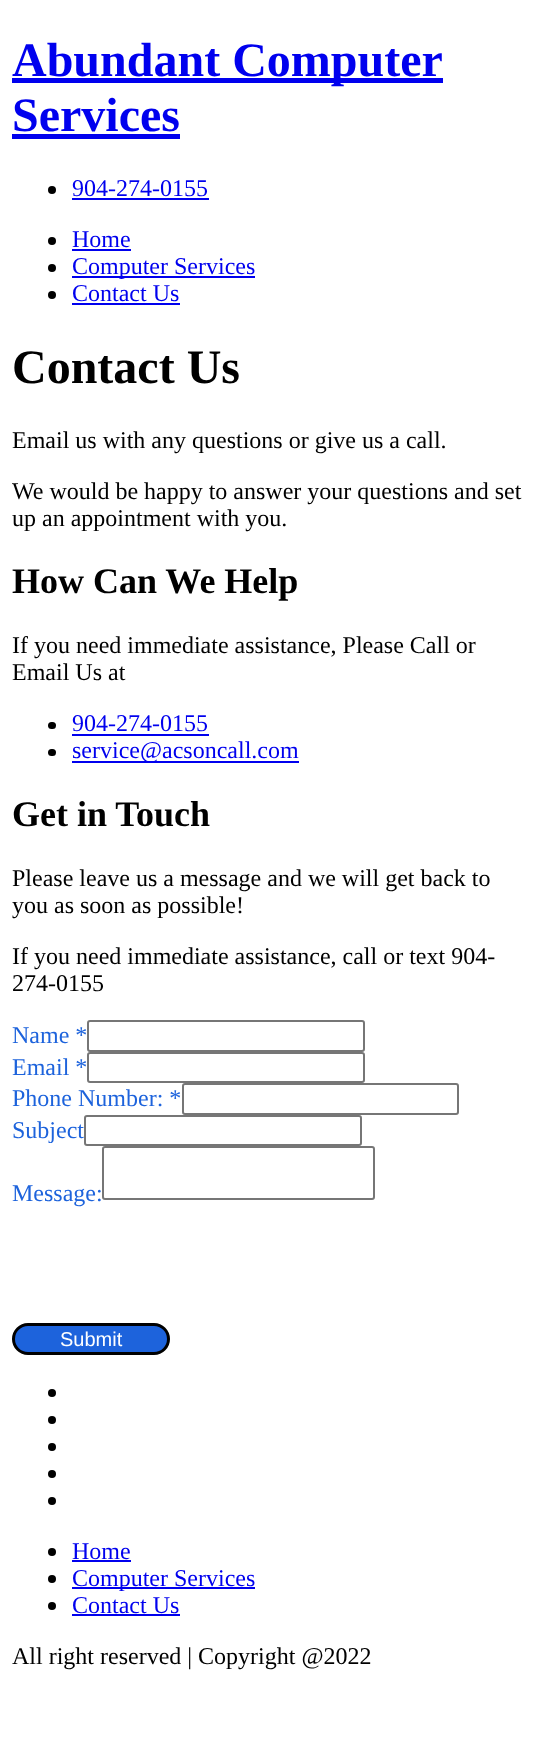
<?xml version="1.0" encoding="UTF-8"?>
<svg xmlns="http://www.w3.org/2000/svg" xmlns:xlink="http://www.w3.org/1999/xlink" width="534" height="1753">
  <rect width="100%" height="100%" fill="#ffffff" />
  <rect x="12" y="78" width="431" height="5" fill="#0000ee" />
  <rect x="12" y="134" width="168" height="5" fill="#0000ee" />
  <circle cx="52" cy="190" r="4" fill="#000000" />
  <rect x="72" y="198" width="137" height="2" fill="#0000ee" />
  <circle cx="52" cy="241" r="4" fill="#000000" />
  <rect x="72" y="249" width="59" height="2" fill="#0000ee" />
  <circle cx="52" cy="268" r="4" fill="#000000" />
  <rect x="72" y="276" width="183" height="2" fill="#0000ee" />
  <circle cx="52" cy="295" r="4" fill="#000000" />
  <rect x="72" y="303" width="108" height="2" fill="#0000ee" />
  <rect x="48" y="722" width="8" height="7" rx="3.5" fill="#000000" />
  <rect x="72" y="734" width="137" height="2" fill="#0000ee" />
  <rect x="48" y="749" width="8" height="7" rx="3.5" fill="#000000" />
  <rect x="72" y="761" width="227" height="2" fill="#0000ee" />
  <rect x="88" y="1021" width="276" height="30" rx="2" fill="none" stroke="#767676" stroke-width="2" />
  <rect x="88" y="1053" width="276" height="29" rx="2" fill="none" stroke="#767676" stroke-width="2" />
  <rect x="183" y="1084" width="275" height="30" rx="2" fill="none" stroke="#767676" stroke-width="2" />
  <rect x="85" y="1116" width="276" height="29" rx="2" fill="none" stroke="#767676" stroke-width="2" />
  <rect x="103" y="1147" width="271" height="52" rx="2" fill="none" stroke="#767676" stroke-width="2" />
  <rect x="13.5" y="1324.5" width="155" height="29" rx="14.5" fill="#1d63dc" stroke="#000000" stroke-width="3" />
  <circle cx="52" cy="1393" r="4" fill="#000000" />
  <circle cx="52" cy="1420" r="4" fill="#000000" />
  <circle cx="52" cy="1447" r="4" fill="#000000" />
  <circle cx="52" cy="1474" r="4" fill="#000000" />
  <circle cx="52" cy="1501" r="4" fill="#000000" />
  <circle cx="52" cy="1552" r="4" fill="#000000" />
  <rect x="72" y="1560" width="59" height="2" fill="#0000ee" />
  <circle cx="52" cy="1579" r="4" fill="#000000" />
  <rect x="72" y="1587" width="183" height="2" fill="#0000ee" />
  <circle cx="52" cy="1606" r="4" fill="#000000" />
  <rect x="72" y="1614" width="108" height="2" fill="#0000ee" />
  <text x="12" y="76" style="font-family: Liberation Serif; font-size: 48px; font-weight: bold; fill: #0000ee">Abundant Computer</text>
  <text x="12" y="131" style="font-family: Liberation Serif; font-size: 48px; font-weight: bold; fill: #0000ee">Services</text>
  <text x="72" y="196" style="font-family: Liberation Serif; font-size: 24px; fill: #0000ee">904-274-0155</text>
  <text x="72" y="247" style="font-family: Liberation Serif; font-size: 24px; fill: #0000ee">Home</text>
  <text x="72" y="274" style="font-family: Liberation Serif; font-size: 24px; fill: #0000ee">Computer Services</text>
  <text x="72" y="301" style="font-family: Liberation Serif; font-size: 24px; fill: #0000ee">Contact Us</text>
  <text x="12" y="383" style="font-family: Liberation Serif; font-size: 48px; font-weight: bold; fill: #000000">Contact Us</text>
  <text x="12" y="448" style="font-family: Liberation Serif; font-size: 24px; fill: #000000">Email us with any questions or give us a call.</text>
  <text x="12" y="499" style="font-family: Liberation Serif; font-size: 24px; fill: #000000">We would be happy to answer your questions and set</text>
  <text x="12" y="526" style="font-family: Liberation Serif; font-size: 24px; fill: #000000">up an appointment with you.</text>
  <text x="12" y="593" style="font-family: Liberation Serif; font-size: 36px; font-weight: bold; fill: #000000">How Can We Help</text>
  <text x="12" y="653" style="font-family: Liberation Serif; font-size: 24px; fill: #000000">If you need immediate assistance, Please Call or</text>
  <text x="12" y="680" style="font-family: Liberation Serif; font-size: 24px; fill: #000000">Email Us at</text>
  <text x="72" y="731" style="font-family: Liberation Serif; font-size: 24px; fill: #0000ee">904-274-0155</text>
  <text x="72" y="758" style="font-family: Liberation Serif; font-size: 24px; fill: #0000ee">service@acsoncall.com</text>
  <text x="12" y="826" style="font-family: Liberation Serif; font-size: 36px; font-weight: bold; fill: #000000">Get in Touch</text>
  <text x="12" y="886" style="font-family: Liberation Serif; font-size: 24px; fill: #000000">Please leave us a message and we will get back to</text>
  <text x="12" y="913" style="font-family: Liberation Serif; font-size: 24px; fill: #000000">you as soon as possible!</text>
  <text x="12" y="964" style="font-family: Liberation Serif; font-size: 24px; fill: #000000">If you need immediate assistance, call or text 904-</text>
  <text x="12" y="991" style="font-family: Liberation Serif; font-size: 24px; fill: #000000">274-0155</text>
  <text x="12" y="1043" style="font-family: Liberation Serif; font-size: 24px; fill: #1d63dc">Name *</text>
  <text x="12" y="1075" style="font-family: Liberation Serif; font-size: 24px; fill: #1d63dc">Email *</text>
  <text x="12" y="1106" style="font-family: Liberation Serif; font-size: 24px; fill: #1d63dc">Phone Number: *</text>
  <text x="12" y="1138" style="font-family: Liberation Serif; font-size: 24px; fill: #1d63dc">Subject</text>
  <text x="12" y="1201" style="font-family: Liberation Serif; font-size: 24px; fill: #1d63dc">Message:</text>
  <text x="60" y="1346" style="font-family: Liberation Sans; font-size: 20px; fill: #ffffff">Submit</text>
  <text x="72" y="1559" style="font-family: Liberation Serif; font-size: 24px; fill: #0000ee">Home</text>
  <text x="72" y="1586" style="font-family: Liberation Serif; font-size: 24px; fill: #0000ee">Computer Services</text>
  <text x="72" y="1613" style="font-family: Liberation Serif; font-size: 24px; fill: #0000ee">Contact Us</text>
  <text x="12" y="1664" style="font-family: Liberation Serif; font-size: 24px; fill: #000000">All right reserved | Copyright @2022</text>
</svg>
